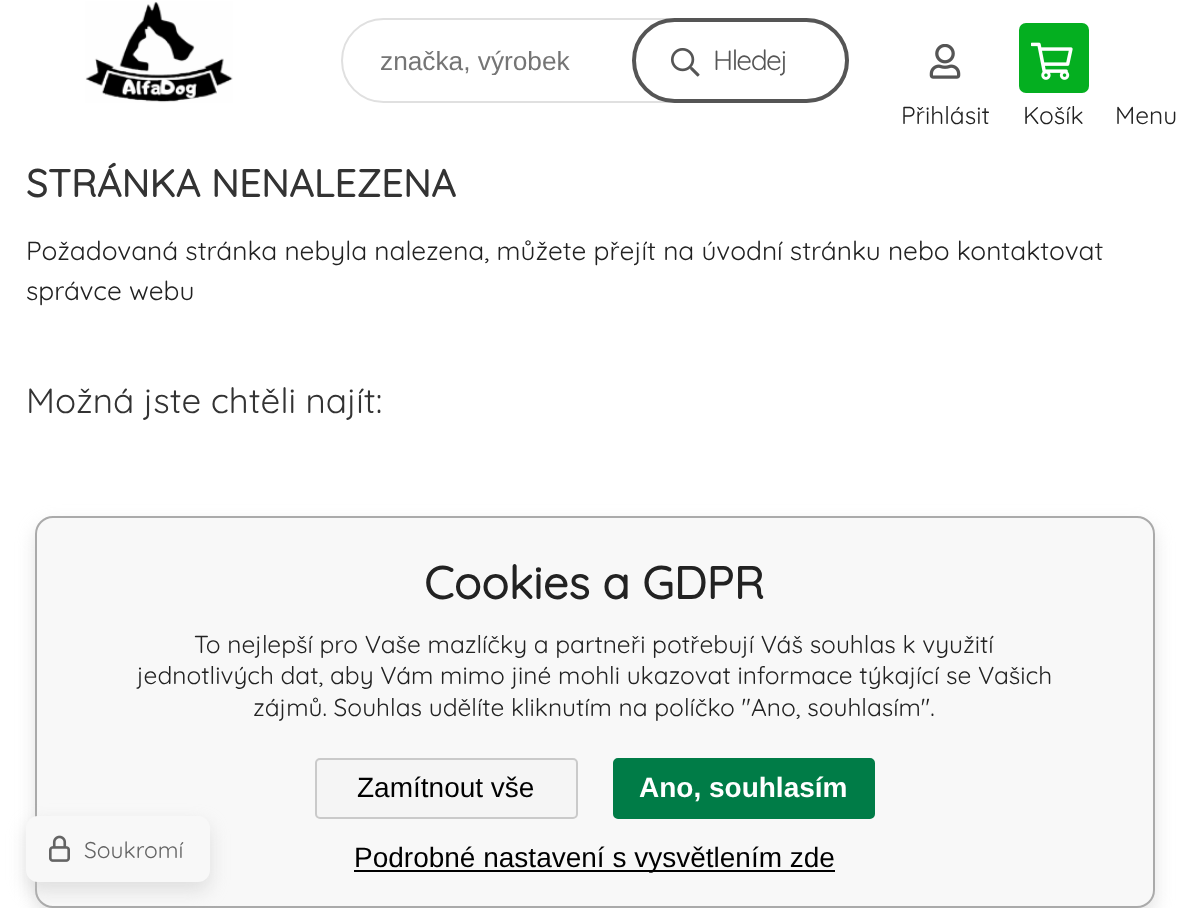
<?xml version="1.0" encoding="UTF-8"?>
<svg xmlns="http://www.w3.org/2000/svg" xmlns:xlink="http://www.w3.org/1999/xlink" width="1187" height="908">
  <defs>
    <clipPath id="clip1"><rect x="380" y="46" width="240" height="29" /></clipPath>
  </defs>
  <rect width="100%" height="100%" fill="#ffffff" />
  <image x="85" y="1" width="148" height="102" xlink:href="image1.png" />
  <rect x="342" y="19" width="506" height="83" rx="41.5" fill="none" stroke="#e0e0e0" stroke-width="2" />
  <image x="670" y="48" width="30" height="29" xlink:href="image2.png" />
  <rect x="634" y="20" width="213" height="81" rx="40.5" fill="none" stroke="#555555" stroke-width="4" />
  <image x="929" y="44" width="32" height="35" xlink:href="image3.png" />
  <rect x="1019" y="23" width="70" height="70" rx="7" fill="#04af20" />
  <image x="1031" y="42" width="42" height="38" xlink:href="image4.png" />
  <rect x="35" y="525" width="1120" height="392" rx="18" fill="#c8c8c8" fill-opacity="0.5" filter="blur(9px)" />
  <rect x="36" y="517" width="1118" height="390" rx="17" fill="#f8f8f8" stroke="#aaaaaa" stroke-width="2" />
  <rect x="26" y="824" width="184" height="67" rx="12" fill="#c8c8c8" fill-opacity="0.5" filter="blur(9px)" />
  <rect x="26" y="816" width="184" height="66" rx="12" fill="#f8f8f8" />
  <image x="49" y="835" width="21" height="27" xlink:href="image5.png" />
  <rect x="316" y="759" width="261" height="59" rx="4" fill="#f5f5f5" stroke="#cacaca" stroke-width="2" />
  <rect x="614" y="759" width="260" height="59" rx="4" fill="#007c47" stroke="#007c47" stroke-width="2" />
  <rect x="354" y="870" width="481" height="2" fill="#000000" />
  <g clip-path="url(#clip1)">
    <text x="380" y="70" style="font-family: Liberation Sans; font-size: 26.25px; fill: #757575">značka, výrobek</text>
  </g>
  <text x="713" y="70" style="font-family: Quicksand; font-size: 28px; font-weight: 300; letter-spacing: -1.5px; fill: #555555">Hledej</text>
  <text x="901" y="124" style="font-family: Quicksand; font-size: 24.5px; font-weight: 300; fill: #222222">Přihlásit</text>
  <text x="1023" y="124" style="font-family: Quicksand; font-size: 24.5px; font-weight: 300; fill: #222222">Košík</text>
  <text x="1115" y="124" style="font-family: Quicksand; font-size: 24.5px; font-weight: 300; fill: #222222">Menu</text>
  <text x="26" y="197" style="font-family: Quicksand; font-size: 38.5px; font-weight: bold; fill: #333333">STRÁNKA NENALEZENA</text>
  <text x="26" y="260" style="font-family: Quicksand; font-size: 26.25px; font-weight: 300; fill: #222222">Požadovaná stránka nebyla nalezena, můžete přejít na úvodní stránku nebo kontaktovat</text>
  <text x="26" y="300" style="font-family: Quicksand; font-size: 26.25px; font-weight: 300; fill: #222222">správce webu</text>
  <text x="26" y="413" style="font-family: Quicksand; font-size: 35px; font-weight: 300; fill: #333333">Možná jste chtěli najít:</text>
  <text x="84" y="858" style="font-family: Quicksand; font-size: 22.75px; font-weight: 300; fill: #646464">Soukromí</text>
  <text x="424" y="599" style="font-family: Quicksand; font-size: 45.5px; font-weight: bold; fill: #222222">Cookies a GDPR</text>
  <text x="194" y="653" style="font-family: Quicksand; font-size: 24.5px; font-weight: 300; fill: #222222">To nejlepší pro Vaše mazlíčky a partneři potřebují Váš souhlas k využití</text>
  <text x="137" y="684" style="font-family: Quicksand; font-size: 24.5px; font-weight: 300; fill: #222222">jednotlivých dat, aby Vám mimo jiné mohli ukazovat informace týkající se Vašich</text>
  <text x="253" y="716" style="font-family: Quicksand; font-size: 24.5px; font-weight: 300; fill: #222222">zájmů. Souhlas udělíte kliknutím na políčko "Ano, souhlasím".</text>
  <text x="357" y="797" style="font-family: Liberation Sans; font-size: 28px; fill: #000000">Zamítnout vše</text>
  <text x="639" y="797" style="font-family: Liberation Sans; font-size: 28px; font-weight: bold; fill: #ffffff">Ano, souhlasím</text>
  <text x="354" y="867" style="font-family: Liberation Sans; font-size: 28px; fill: #000000">Podrobné nastavení s vysvětlením zde</text>
</svg>
